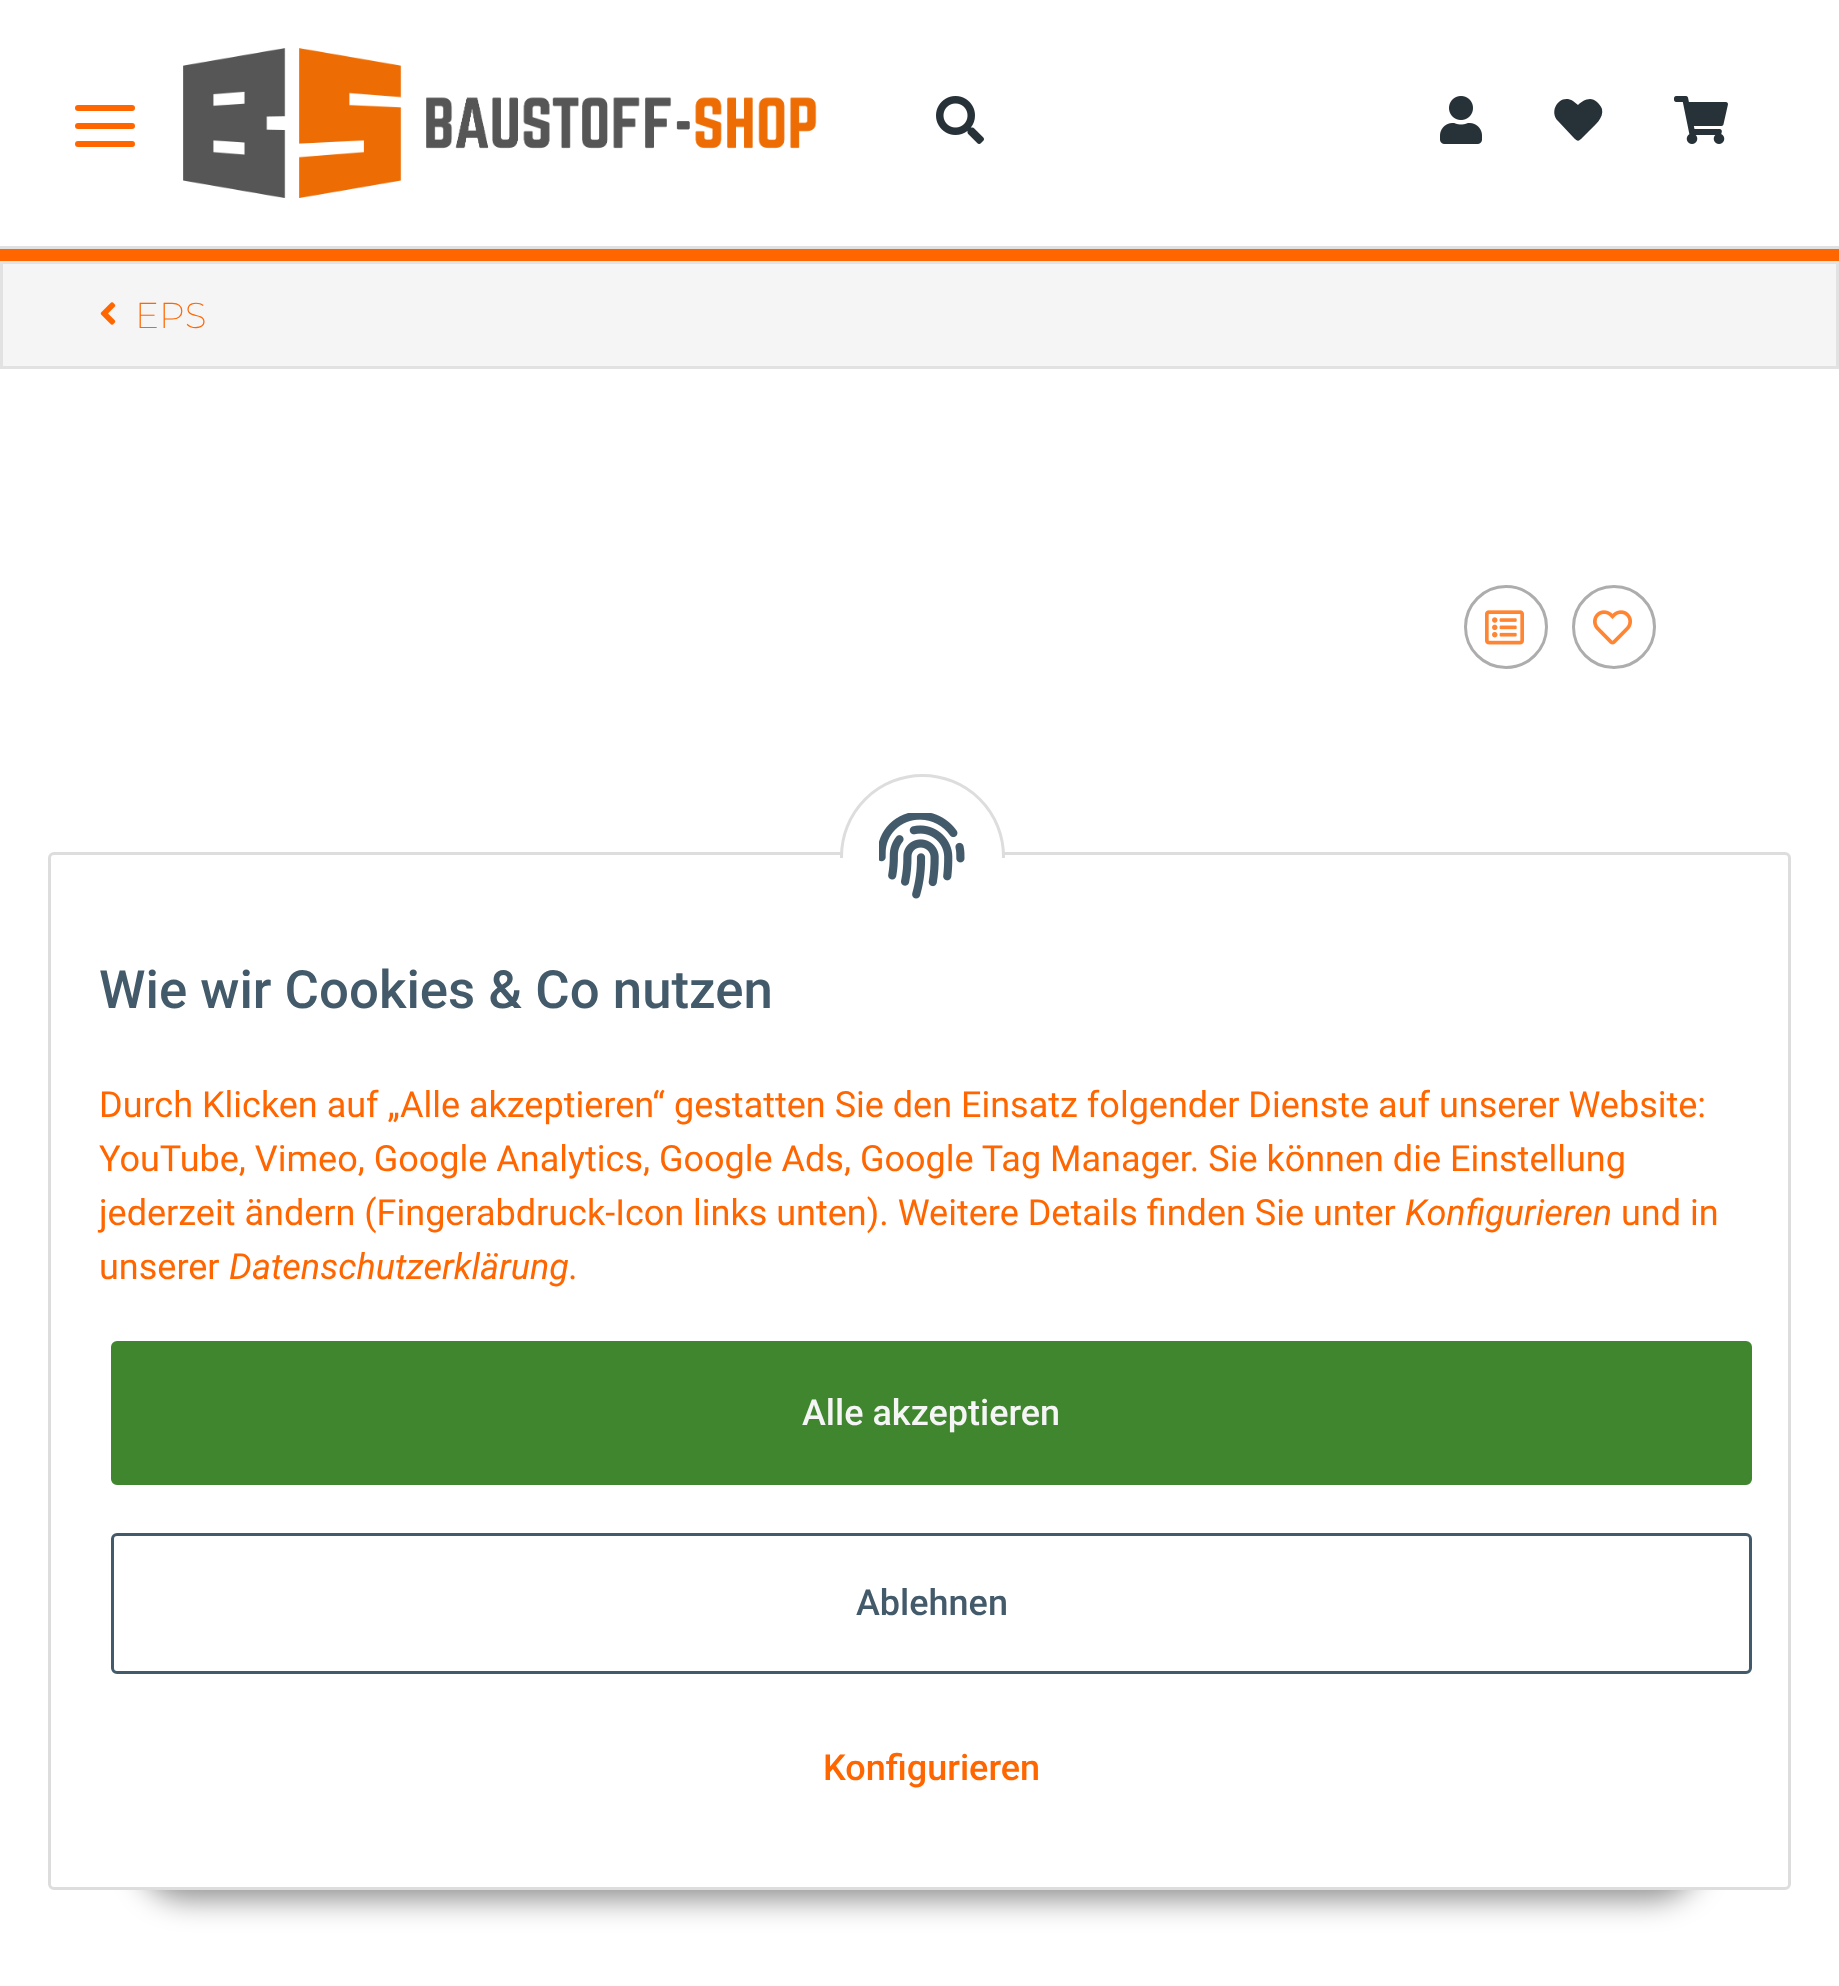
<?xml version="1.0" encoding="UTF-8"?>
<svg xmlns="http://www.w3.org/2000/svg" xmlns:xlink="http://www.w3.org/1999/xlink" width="1839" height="1986">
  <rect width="100%" height="100%" fill="#ffffff" />
  <rect x="75" y="123" width="60" height="6" rx="3" fill="#ff6600" />
  <rect x="75" y="105" width="60" height="6" rx="3" fill="#ff6600" />
  <rect x="75" y="141" width="60" height="6" rx="3" fill="#ff6600" />
  <image x="183" y="48" width="634" height="150" xlink:href="image1.png" />
  <image x="936" y="96" width="48" height="48" xlink:href="image2.png" />
  <image x="1440" y="96" width="42" height="48" xlink:href="image3.png" />
  <path d="M 1597 102 c -6 -6 -14 -2 -19 3 l -5 -4 c -13 -8 -25 10 -15 20 l 15 16 c 5 5 5 5 10 0 l 6 -6 c 6 -6 15 -13 13 -22 c -1 -3 -3 -5 -5 -7 z" fill="#263238" />
  <image x="1674" y="96" width="54" height="48" xlink:href="image4.png" />
  <rect y="246" width="1839" height="3" fill="#e0e0e0" />
  <rect y="249" width="1839" height="12" fill="#ff6600" />
  <rect x="1.5" y="262.5" width="1836" height="105" fill="#f5f5f5" stroke="#e2e2e2" stroke-width="3" />
  <image x="100" y="302" width="16" height="23" xlink:href="image5.png" />
  <circle cx="1506" cy="627" r="40.5" fill="none" stroke="#adadad" stroke-width="3" />
  <image x="1485" y="610" width="39" height="35" xlink:href="image6.png" />
  <circle cx="1614" cy="627" r="40.5" fill="none" stroke="#adadad" stroke-width="3" />
  <image x="1593" y="610" width="39" height="35" xlink:href="image7.png" />
  <rect x="138" y="1803" width="1563" height="96" rx="48" fill="#000000" fill-opacity="0.45" filter="blur(15px)" />
  <rect x="49.5" y="853.5" width="1740" height="1035" rx="4.5" fill="#ffffff" stroke="#dddddd" stroke-width="3" />
  <circle cx="922.5" cy="856.5" r="81" fill="#ffffff" stroke="#dddddd" stroke-width="3" />
  <rect x="840" y="858" width="165" height="81" fill="#ffffff" />
  <image x="879" y="813" width="86" height="86" xlink:href="image8.png" />
  <rect x="112.5" y="1342.5" width="1638" height="141" rx="4.5" fill="#3f862f" stroke="#3f862f" stroke-width="3" />
  <rect x="112.5" y="1534.5" width="1638" height="138" rx="4.5" fill="none" stroke="#435a6b" stroke-width="3" />
  <text x="135" y="328" style="font-family: Montserrat; font-size: 36px; font-weight: 200; fill: #ff6600">EPS</text>
  <text x="99" y="1008" style="font-family: Roboto; font-size: 52.75px; font-weight: 500; fill: #435a6b">Wie wir Cookies &amp; Co nutzen</text>
  <text x="99" y="1117" style="font-family: Roboto; font-size: 36px; fill: #ff6600">Durch Klicken auf „Alle akzeptieren“ gestatten Sie den Einsatz folgender Dienste auf unserer Website:</text>
  <text x="99" y="1171" style="font-family: Roboto; font-size: 36px; fill: #ff6600">YouTube, Vimeo, Google Analytics, Google Ads, Google Tag Manager. Sie können die Einstellung</text>
  <text x="99" y="1225" style="font-family: Roboto; font-size: 36px; fill: #ff6600">jederzeit ändern (Fingerabdruck-Icon links unten). Weitere Details finden Sie unter</text>
  <text x="1405" y="1225" style="font-family: Roboto; font-size: 36px; font-style: italic; fill: #ff6600">Konfigurieren</text>
  <text x="1621" y="1225" style="font-family: Roboto; font-size: 36px; fill: #ff6600">und in</text>
  <text x="99" y="1279" style="font-family: Roboto; font-size: 36px; fill: #ff6600">unserer</text>
  <text x="229" y="1279" style="font-family: Roboto; font-size: 36px; font-style: italic; fill: #ff6600">Datenschutzerklärung</text>
  <text x="568" y="1279" style="font-family: Roboto; font-size: 36px; fill: #ff6600">.</text>
  <text x="802" y="1425" style="font-family: Roboto; font-size: 36px; font-weight: 500; fill: #f5f5f5">Alle akzeptieren</text>
  <text x="856" y="1615" style="font-family: Roboto; font-size: 36px; font-weight: 500; fill: #435a6b">Ablehnen</text>
  <text x="823" y="1780" style="font-family: Roboto; font-size: 36px; font-weight: 500; fill: #ff6600">Konfigurieren</text>
</svg>
